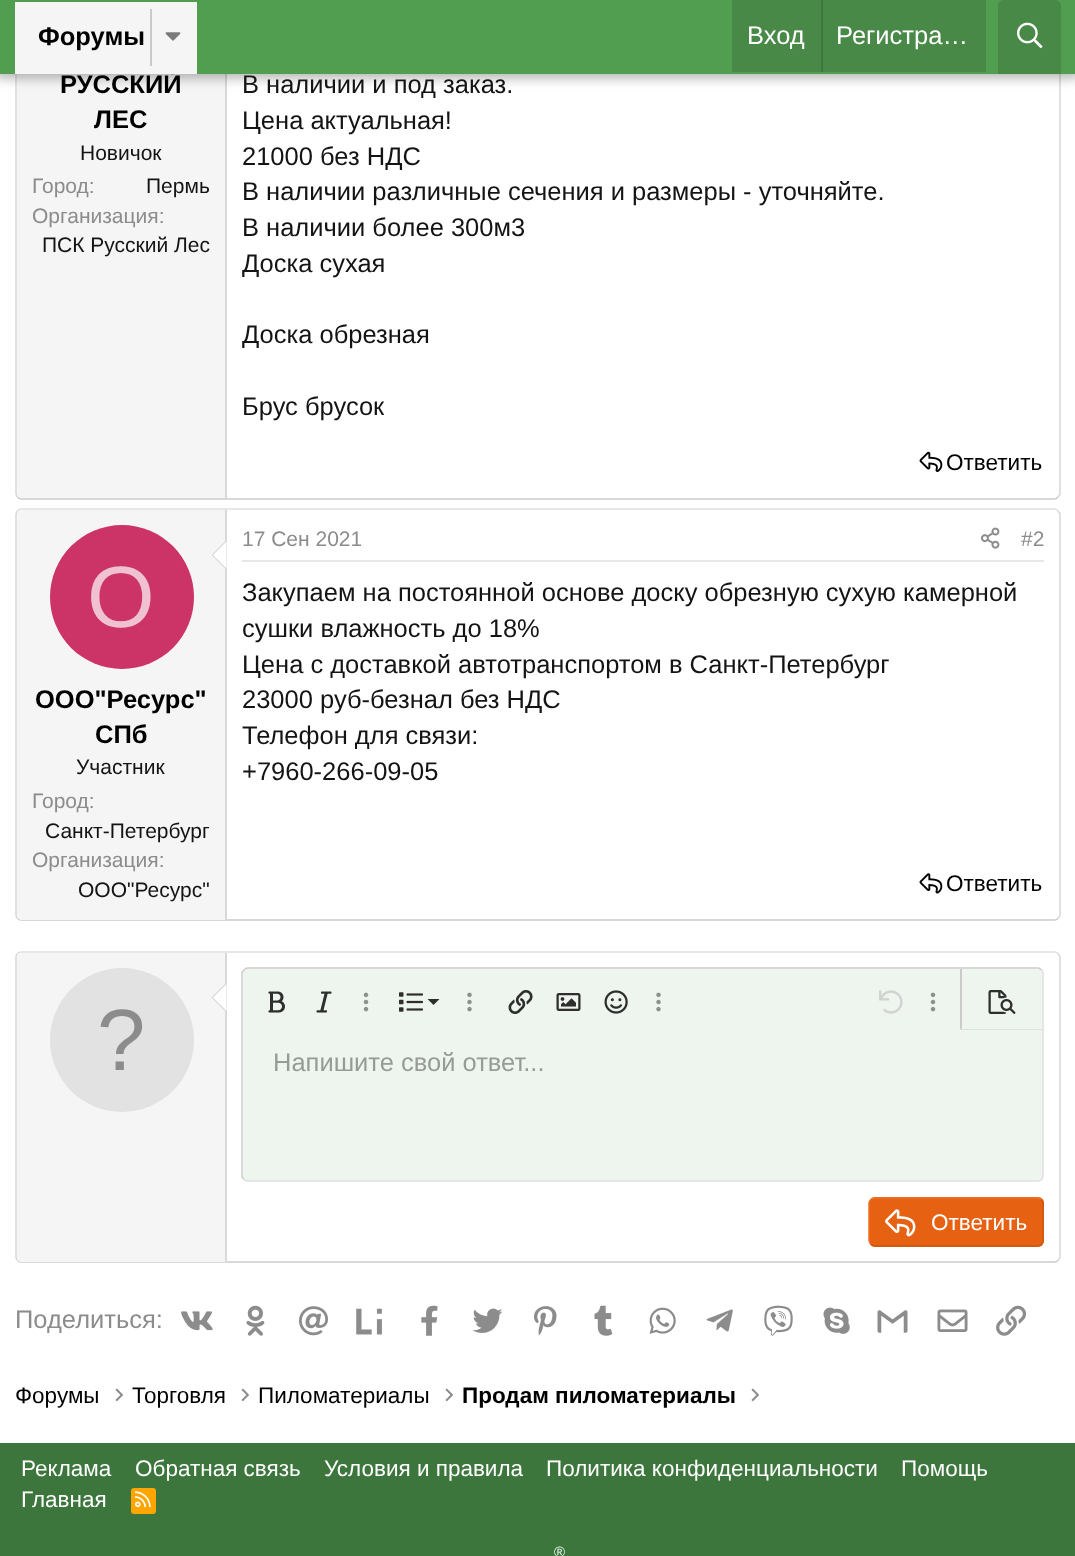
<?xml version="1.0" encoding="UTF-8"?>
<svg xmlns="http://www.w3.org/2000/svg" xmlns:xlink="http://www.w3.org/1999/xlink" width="1075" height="1556">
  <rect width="100%" height="100%" fill="#ffffff" />
  <path d="M 1058 -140 c 1 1 2 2 2 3.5 v 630 c 0 1.5 -1 2.5 -2 3.5" fill="none" stroke="#d8d8d8" stroke-width="1.5" />
  <path d="M 1058 497 c -1 1 -2 2 -3.5 2 h -1033.5 c -1.5 0 -2.5 -1 -3.5 -2" fill="none" stroke="#cbcbcb" stroke-width="1.5" />
  <path d="M 17.5 497 c -1 -1 -1.5 -2 -1.5 -3.5 v -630 c 0 -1.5 0.5 -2.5 1.5 -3.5" fill="none" stroke="#d8d8d8" stroke-width="1.5" />
  <path d="M 22 -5 h 205 v 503 h -205 c -3 0 -5 -2 -5 -5 v -493 c 0 -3 2 -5 5 -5 z" fill="#f5f5f5" />
  <rect x="225" y="74" width="2" height="424" fill="#d8d8d8" />
  <rect x="-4" y="-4" width="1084" height="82" fill="#000000" fill-opacity="0.3" filter="blur(6px)" />
  <image x="919" y="451" width="24" height="21" xlink:href="image3.png" />
  <path d="M 17.5 511 c 1 -1 2 -2 3.5 -2 h 1033.5 c 1.5 0 2.5 1 3.5 2" fill="none" stroke="#dfdfdf" stroke-width="1.5" />
  <path d="M 1058 511 c 1 1 2 2 2 3.5 v 400.5 c 0 1.5 -1 2.5 -2 3.5" fill="none" stroke="#d8d8d8" stroke-width="1.5" />
  <path d="M 1058 918.5 c -1 1 -2 1.5 -3.5 1.5 h -1033.5 c -1.5 0 -2.5 -0.5 -3.5 -1.5" fill="none" stroke="#cbcbcb" stroke-width="1.5" />
  <path d="M 17.5 918.5 c -1 -1 -1.5 -2 -1.5 -3.5 v -400.5 c 0 -1.5 0.5 -2.5 1.5 -3.5" fill="none" stroke="#d8d8d8" stroke-width="1.5" />
  <path d="M 22 510 h 205 v 410 h -205 c -3 0 -5 -2 -5 -5 v -400 c 0 -3 2 -5 5 -5 z" fill="#f5f5f5" />
  <rect x="225" y="510" width="2" height="410" fill="#d8d8d8" />
  <path d="M 226.5 540 v 30 l -15 -15 z" fill="#d8d8d8" />
  <path d="M 226.5 541.5 v 27 l -13.5 -13.5 z" fill="#fefefe" />
  <circle cx="122" cy="597" r="72" fill="#cc3366" />
  <rect x="242" y="560" width="802" height="2" fill="#e7e7e7" />
  <image x="981" y="527" width="19" height="22" xlink:href="image4.png" />
  <image x="919" y="873" width="24" height="21" xlink:href="image5.png" />
  <path d="M 17.5 953.5 c 1 -1 2 -1.5 3.5 -1.5 h 1033.5 c 1.5 0 2.5 0.5 3.5 1.5" fill="none" stroke="#dfdfdf" stroke-width="1.5" />
  <path d="M 1058 953.5 c 1 1 2 2 2 3.5 v 300 c 0 1.5 -1 2.5 -2 3.5" fill="none" stroke="#d8d8d8" stroke-width="1.5" />
  <path d="M 1058 1260.5 c -1 1 -2 1.5 -3.5 1.5 h -1033.5 c -1.5 0 -2.5 -0.5 -3.5 -1.5" fill="none" stroke="#cbcbcb" stroke-width="1.5" />
  <path d="M 17.5 1260.5 c -1 -1 -1.5 -2 -1.5 -3.5 v -300 c 0 -1.5 0.5 -2.5 1.5 -3.5" fill="none" stroke="#d8d8d8" stroke-width="1.5" />
  <path d="M 22 953 h 205 v 309 h -205 c -3 0 -5 -2 -5 -5 v -299 c 0 -3 2 -5 5 -5 z" fill="#f5f5f5" />
  <rect x="225" y="953" width="2" height="309" fill="#d8d8d8" />
  <path d="M 226.5 982.5 v 30 l -15 -15 z" fill="#d8d8d8" />
  <path d="M 226.5 984 v 27 l -13.5 -13.5 z" fill="#fefefe" />
  <circle cx="122" cy="1040" r="72" fill="#e2e2e2" />
  <rect x="243" y="969" width="800" height="212" rx="5" fill="#eef5ee" />
  <path d="M 1041.5 970 c 1 1 1.5 2 1.5 3.5 v 202.5 c 0 1.5 -0.5 2.5 -1.5 3.5 c -1 1 -2 1.5 -3.5 1.5 h -790.5 c -1.5 0 -2.5 -0.5 -3.5 -1.5" fill="none" stroke="#dfdfdf" stroke-width="1.5" />
  <path d="M 244 1179.5 c -1 -1 -2 -2 -2 -3.5 v -202.5 c 0 -1.5 1 -2.5 2 -3.5 c 1 -1 2 -2 3.5 -2 h 790.5 c 1.5 0 2.5 1 3.5 2" fill="none" stroke="#cbcbcb" stroke-width="1.5" />
  <image x="268" y="991" width="17" height="22" xlink:href="image6.png" />
  <image x="316" y="991" width="16" height="22" xlink:href="image7.png" />
  <image x="363" y="992" width="6" height="20" xlink:href="image8.png" />
  <image x="399" y="992" width="24" height="20" xlink:href="image9.png" />
  <path d="M 427.5 999 h 12 l -6 6 z" fill="#2c2d2c" />
  <image x="467" y="992" width="5" height="20" xlink:href="image10.png" />
  <image x="508" y="990" width="25" height="24" xlink:href="image11.png" />
  <image x="556" y="993" width="25" height="18" xlink:href="image12.png" />
  <image x="604" y="990" width="24" height="24" xlink:href="image13.png" />
  <image x="656" y="992" width="5" height="20" xlink:href="image10.png" />
  <image x="879" y="990" width="24" height="24" xlink:href="image14.png" />
  <image x="930" y="992" width="6" height="20" xlink:href="image8.png" />
  <path d="M 962 1028 l -2 2 h 82 v -1 h -80 z" fill="#dfdfdf" />
  <path d="M 960 969 h 2 v 59 l -2 2 z" fill="#cbcbcb" />
  <image x="988" y="990" width="28" height="24" xlink:href="image15.png" />
  <rect x="869" y="1197" width="175" height="50" rx="6" fill="#e66212" />
  <path d="M 1041.5 1199.5 c 1 1 1.5 2 1.5 3.5 v 37.5 c 0 1.5 -0.5 2.5 -1.5 3.5 c -1 1 -2 2 -3.5 2 h -163.5 c -1.5 0 -2.5 -1 -3.5 -2" fill="none" stroke="#ce5810" stroke-width="1.5" />
  <path d="M 871 1244 c -1 -1 -2 -2 -2 -3.5 v -37.5 c 0 -1.5 1 -2.5 2 -3.5 c 1 -1 2 -1.5 3.5 -1.5 h 163.5 c 1.5 0 2.5 0.5 3.5 1.5" fill="none" stroke="#ee7024" stroke-width="1.5" />
  <image x="885" y="1209" width="31" height="28" xlink:href="image16.png" />
  <image x="181" y="1311" width="32" height="20" xlink:href="image17.png" />
  <image x="246" y="1305" width="19" height="31" xlink:href="image18.png" />
  <image x="299" y="1306" width="29" height="30" xlink:href="image19.png" />
  <image x="356" y="1308" width="26" height="27" xlink:href="image20.png" />
  <image x="421" y="1305" width="17" height="31" xlink:href="image21.png" />
  <image x="472" y="1308" width="31" height="25" xlink:href="image22.png" />
  <image x="534" y="1306" width="23" height="30" xlink:href="image23.png" />
  <image x="594" y="1305" width="19" height="31" xlink:href="image24.png" />
  <image x="649" y="1307" width="27" height="27" xlink:href="image25.png" />
  <image x="706" y="1309" width="27" height="23" xlink:href="image26.png" />
  <image x="764" y="1305" width="29" height="31" xlink:href="image27.png" />
  <image x="823" y="1307" width="27" height="27" xlink:href="image28.png" />
  <image x="877" y="1310" width="31" height="23" xlink:href="image29.png" />
  <image x="937" y="1309" width="31" height="23" xlink:href="image30.png" />
  <image x="996" y="1305" width="30" height="31" xlink:href="image31.png" />
  <image x="115" y="1388" width="8" height="14" xlink:href="image32.png" />
  <image x="241" y="1388" width="8" height="14" xlink:href="image32.png" />
  <image x="445" y="1388" width="8" height="14" xlink:href="image32.png" />
  <image x="751" y="1388" width="8" height="14" xlink:href="image32.png" />
  <rect y="1443" width="1075" height="113" fill="#3c763c" />
  <rect x="131" y="1488" width="25" height="26" rx="3" fill="#ffa500" />
  <image x="135" y="1491" width="16" height="17" xlink:href="image33.png" />
  <text x="60" y="93" style="font-family: Liberation Sans; font-size: 25.5px; font-weight: bold; fill: #000000">РУССКИЙ</text>
  <rect width="1075" height="74" fill="#519e51" />
  <rect x="15" y="2" width="182" height="72" fill="#f5f5f5" />
  <rect x="150" y="9" width="2" height="57" fill="#cacaca" />
  <image x="165" y="32" width="16" height="9" xlink:href="image1.png" />
  <text x="38" y="45" style="font-family: Liberation Sans; font-size: 25.5px; font-weight: bold; fill: #000000">Форумы</text>
  <rect x="732" width="254" height="72" fill="#488948" />
  <text x="836" y="44" style="font-family: Liberation Sans; font-size: 25.5px; fill: #ffffff">Регистра…</text>
  <rect x="821" width="2" height="72" fill="#407740" />
  <text x="747" y="44" style="font-family: Liberation Sans; font-size: 25.5px; fill: #ffffff">Вход</text>
  <path d="M 1004 0 h 51 c 3.5 0 6 2.5 6 6 v 68 h -63 v -68 c 0 -3.5 2.5 -6 6 -6 z" fill="#488948" />
  <image x="1017" y="22" width="26" height="27" xlink:href="image2.png" />
  <text x="94" y="128" style="font-family: Liberation Sans; font-size: 25.5px; font-weight: bold; fill: #000000">ЛЕС</text>
  <text x="80" y="160" style="font-family: Liberation Sans; font-size: 21px; fill: #141414">Новичок</text>
  <text x="32" y="193" style="font-family: Liberation Sans; font-size: 21px; fill: #8c8c8c">Город:</text>
  <text x="146" y="193" style="font-family: Liberation Sans; font-size: 21px; fill: #141414">Пермь</text>
  <text x="32" y="223" style="font-family: Liberation Sans; font-size: 21px; fill: #8c8c8c">Организация:</text>
  <text x="42" y="252" style="font-family: Liberation Sans; font-size: 21px; fill: #141414">ПСК Русский Лес</text>
  <text x="242" y="93" style="font-family: Liberation Sans; font-size: 25.5px; fill: #141414">В наличии и под заказ.</text>
  <text x="242" y="129" style="font-family: Liberation Sans; font-size: 25.5px; fill: #141414">Цена актуальная!</text>
  <text x="242" y="165" style="font-family: Liberation Sans; font-size: 25.5px; fill: #141414">21000 без НДС</text>
  <text x="242" y="200" style="font-family: Liberation Sans; font-size: 25.5px; fill: #141414">В наличии различные сечения и размеры - уточняйте.</text>
  <text x="242" y="236" style="font-family: Liberation Sans; font-size: 25.5px; fill: #141414">В наличии более 300м3</text>
  <text x="242" y="272" style="font-family: Liberation Sans; font-size: 25.5px; fill: #141414">Доска сухая</text>
  <text x="242" y="343" style="font-family: Liberation Sans; font-size: 25.5px; fill: #141414">Доска обрезная</text>
  <text x="242" y="415" style="font-family: Liberation Sans; font-size: 25.5px; fill: #141414">Брус брусок</text>
  <text x="946" y="470" style="font-family: Liberation Sans; font-size: 22.5px; fill: #000000">Ответить</text>
  <text x="87" y="627" style="font-family: Liberation Sans; font-size: 87px; fill: #f0c2d1">О</text>
  <text x="35" y="708" style="font-family: Liberation Sans; font-size: 25.5px; font-weight: bold; fill: #000000">ООО"Ресурс"</text>
  <text x="95" y="743" style="font-family: Liberation Sans; font-size: 25.5px; font-weight: bold; fill: #000000">СПб</text>
  <text x="76" y="774" style="font-family: Liberation Sans; font-size: 21px; fill: #141414">Участник</text>
  <text x="32" y="808" style="font-family: Liberation Sans; font-size: 21px; fill: #8c8c8c">Город:</text>
  <text x="45" y="838" style="font-family: Liberation Sans; font-size: 21px; fill: #141414">Санкт-Петербург</text>
  <text x="32" y="867" style="font-family: Liberation Sans; font-size: 21px; fill: #8c8c8c">Организация:</text>
  <text x="78" y="897" style="font-family: Liberation Sans; font-size: 21px; fill: #141414">ООО"Ресурс"</text>
  <text x="242" y="546" style="font-family: Liberation Sans; font-size: 21px; fill: #8c8c8c">17 Сен 2021</text>
  <text x="1021" y="546" style="font-family: Liberation Sans; font-size: 21px; fill: #8c8c8c">#2</text>
  <text x="242" y="601" style="font-family: Liberation Sans; font-size: 25.5px; fill: #141414">Закупаем на постоянной основе доску обрезную сухую камерной</text>
  <text x="242" y="637" style="font-family: Liberation Sans; font-size: 25.5px; fill: #141414">сушки влажность до 18%</text>
  <text x="242" y="673" style="font-family: Liberation Sans; font-size: 25.5px; fill: #141414">Цена с доставкой автотранспортом в Санкт-Петербург</text>
  <text x="242" y="708" style="font-family: Liberation Sans; font-size: 25.5px; fill: #141414">23000 руб-безнал без НДС</text>
  <text x="242" y="744" style="font-family: Liberation Sans; font-size: 25.5px; fill: #141414">Телефон для связи:</text>
  <text x="242" y="780" style="font-family: Liberation Sans; font-size: 25.5px; fill: #141414">+7960-266-09-05</text>
  <text x="946" y="891" style="font-family: Liberation Sans; font-size: 22.5px; fill: #000000">Ответить</text>
  <text x="97" y="1070" style="font-family: Liberation Sans; font-size: 87px; fill: #8c8c8c">?</text>
  <text x="273" y="1071" style="font-family: Liberation Sans; font-size: 25.5px; fill: #979b97">Напишите свой ответ...</text>
  <text x="931" y="1230" style="font-family: Liberation Sans; font-size: 22.5px; fill: #ffffff">Ответить</text>
  <text x="15" y="1328" style="font-family: Liberation Sans; font-size: 25.5px; fill: #8c8c8c">Поделиться:</text>
  <text x="15" y="1403" style="font-family: Liberation Sans; font-size: 22.5px; fill: #000000">Форумы</text>
  <text x="132" y="1403" style="font-family: Liberation Sans; font-size: 22.5px; fill: #000000">Торговля</text>
  <text x="258" y="1403" style="font-family: Liberation Sans; font-size: 22.5px; fill: #000000">Пиломатериалы</text>
  <text x="462" y="1403" style="font-family: Liberation Sans; font-size: 22.5px; font-weight: bold; fill: #000000">Продам пиломатериалы</text>
  <text x="21" y="1476" style="font-family: Liberation Sans; font-size: 22.5px; fill: #ffffff">Реклама</text>
  <text x="135" y="1476" style="font-family: Liberation Sans; font-size: 22.5px; fill: #ffffff">Обратная связь</text>
  <text x="324" y="1476" style="font-family: Liberation Sans; font-size: 22.5px; fill: #ffffff">Условия и правила</text>
  <text x="546" y="1476" style="font-family: Liberation Sans; font-size: 22.5px; fill: #ffffff">Политика конфиденциальности</text>
  <text x="901" y="1476" style="font-family: Liberation Sans; font-size: 22.5px; fill: #ffffff">Помощь</text>
  <text x="21" y="1507" style="font-family: Liberation Sans; font-size: 22.5px; fill: #ffffff">Главная</text>
  <text x="554" y="1557" style="font-family: Liberation Sans; font-size: 15px; fill: #edfdf5">®</text>
</svg>
